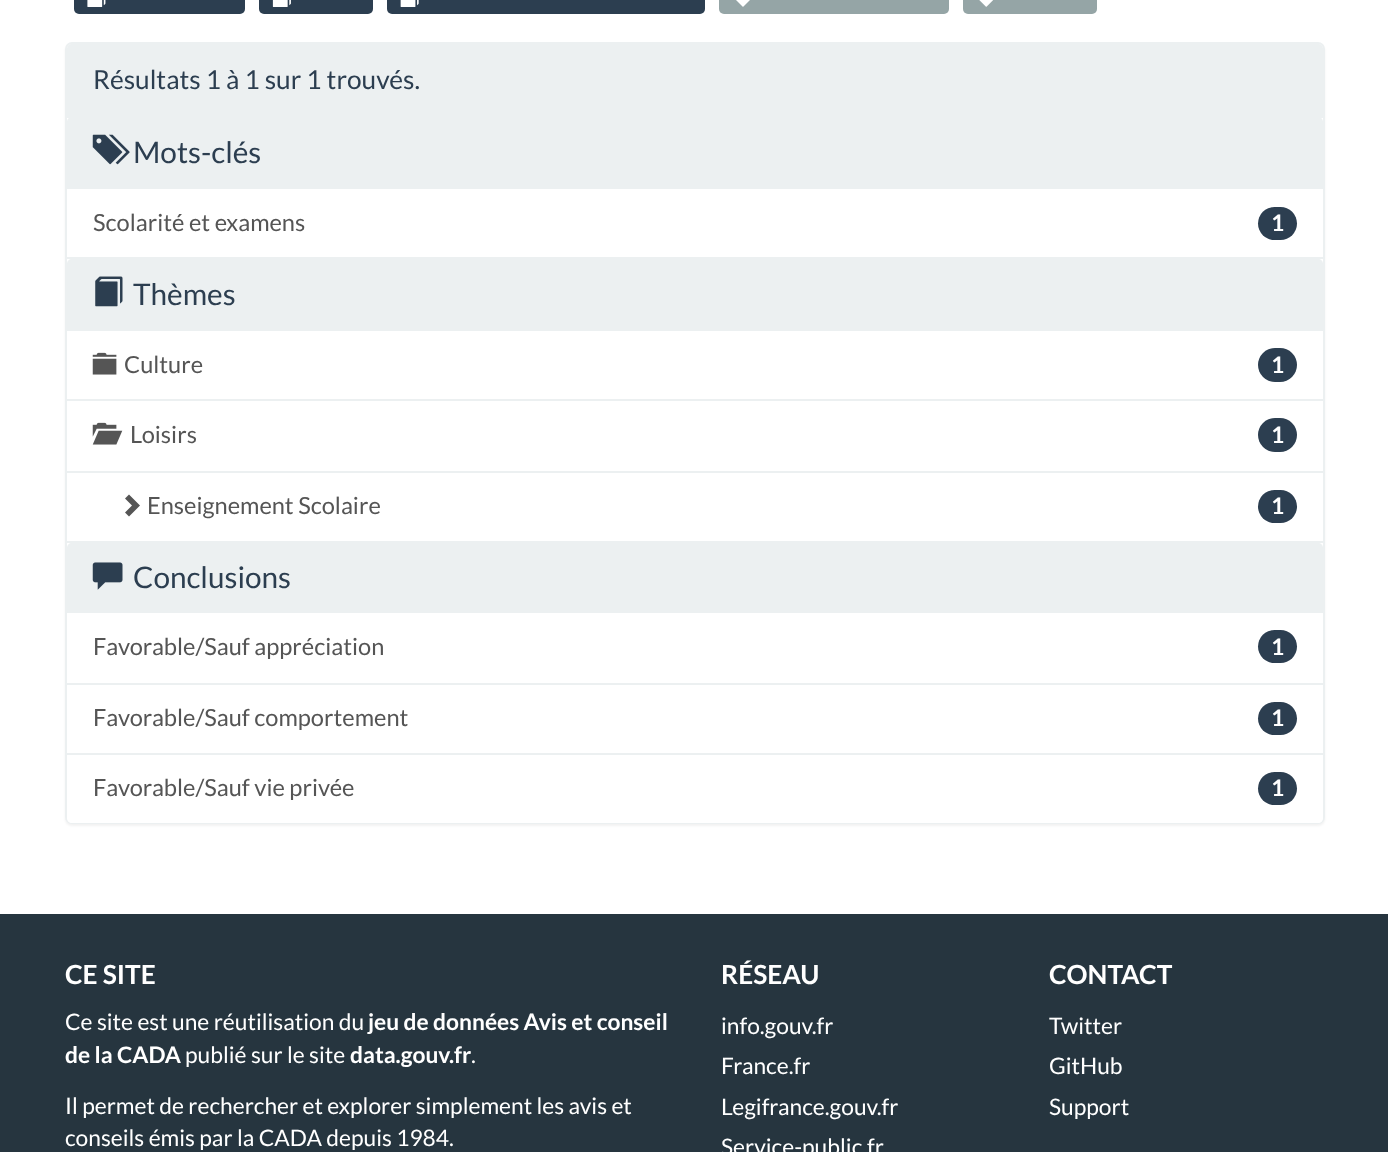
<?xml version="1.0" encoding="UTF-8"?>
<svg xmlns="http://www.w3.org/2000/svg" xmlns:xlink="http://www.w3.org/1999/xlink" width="1388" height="1152">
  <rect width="100%" height="100%" fill="#ffffff" />
  <rect x="74" y="-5" width="171" height="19" rx="5" fill="#2c3e50" />
  <image x="87" y="0" width="19" height="7" xlink:href="image1.png" />
  <rect x="259" y="-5" width="114" height="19" rx="5" fill="#2c3e50" />
  <image x="272" y="0" width="19" height="7" xlink:href="image2.png" />
  <rect x="387" y="-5" width="318" height="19" rx="5" fill="#2c3e50" />
  <image x="400" y="0" width="19" height="7" xlink:href="image3.png" />
  <rect x="719" y="-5" width="230" height="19" rx="5" fill="#95a5a6" />
  <image x="736" y="0" width="14" height="7" xlink:href="image4.png" />
  <rect x="963" y="-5" width="134" height="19" rx="5" fill="#95a5a6" />
  <image x="979" y="0" width="14" height="7" xlink:href="image5.png" />
  <rect x="65" y="44" width="1260" height="782" rx="7" fill="#000000" fill-opacity="0.05" filter="blur(1px)" />
  <rect x="66" y="43" width="1258" height="780" rx="6" fill="#ffffff" stroke="#ecf0f1" stroke-width="2" />
  <path d="M 72 44 h 1246 c 3 0 5 2 5 5 v 68 h -1256 v -68 c 0 -3 2 -5 5 -5 z" fill="#ecf0f1" />
  <rect x="67" y="117" width="1256" height="1" fill="#ecf0f1" />
  <path d="M 72 117 h 1246 c 3 0 5 2 5 5 v 67 h -1256 v -67 c 0 -3 2 -5 5 -5 z" fill="#ecf0f1" />
  <image x="92" y="134" width="38" height="31" xlink:href="image6.png" />
  <rect x="67" y="257" width="1256" height="2" fill="#ecf0f1" />
  <rect x="1258" y="207" width="39" height="33" rx="16.5" fill="#2c3e50" />
  <path d="M 72 259 h 1246 c 3 0 5 2 5 5 v 67 h -1256 v -67 c 0 -3 2 -5 5 -5 z" fill="#ecf0f1" />
  <image x="95" y="276" width="28" height="31" xlink:href="image7.png" />
  <rect x="67" y="399" width="1256" height="2" fill="#ecf0f1" />
  <image x="92" y="352" width="25" height="23" xlink:href="image8.png" />
  <rect x="1258" y="348" width="39" height="34" rx="17" fill="#2c3e50" />
  <rect x="67" y="471" width="1256" height="2" fill="#ecf0f1" />
  <image x="92" y="422" width="31" height="23" xlink:href="image9.png" />
  <rect x="1258" y="418" width="39" height="34" rx="17" fill="#2c3e50" />
  <rect x="67" y="541" width="1256" height="2" fill="#ecf0f1" />
  <path d="M 140 505.5 l -11 11 l -4 -4 l 7 -7 l -7 -7 l 4 -4 z" fill="#555555" />
  <rect x="1258" y="490" width="39" height="33" rx="16.5" fill="#2c3e50" />
  <path d="M 72 543 h 1246 c 3 0 5 2 5 5 v 65 h -1256 v -65 c 0 -3 2 -5 5 -5 z" fill="#ecf0f1" />
  <image x="92" y="562" width="31" height="28" xlink:href="image10.png" />
  <rect x="1258" y="630" width="39" height="33" rx="16.5" fill="#2c3e50" />
  <rect x="67" y="683" width="1256" height="2" fill="#ecf0f1" />
  <rect x="1258" y="702" width="39" height="33" rx="16.5" fill="#2c3e50" />
  <path d="M 67 753 h 1256 v 65 c 0 3 -2 5 -5 5 h -1246 c -3 0 -5 -2 -5 -5 z" fill="#ffffff" />
  <rect x="67" y="753" width="1256" height="2" fill="#ecf0f1" />
  <rect x="1258" y="772" width="39" height="33" rx="16.5" fill="#2c3e50" />
  <rect y="914" width="1388" height="238" fill="#26353f" />
  <text x="93" y="89" style="font-family: Lato; font-size: 26.25px; fill: #2c3e50">Résultats 1 à 1 sur 1 trouvés.</text>
  <text x="133" y="163" style="font-family: Lato; font-size: 29.75px; fill: #2c3e50">Mots-clés</text>
  <text x="93" y="231" style="font-family: Lato; font-size: 23.6px; fill: #555555">Scolarité et examens</text>
  <text x="1271" y="231" style="font-family: Lato; font-size: 22.75px; font-weight: bold; fill: #ffffff">1</text>
  <text x="133" y="305" style="font-family: Lato; font-size: 29.75px; fill: #2c3e50">Thèmes</text>
  <text x="124" y="373" style="font-family: Lato; font-size: 23.6px; fill: #555555">Culture</text>
  <text x="1271" y="373" style="font-family: Lato; font-size: 22.75px; font-weight: bold; fill: #ffffff">1</text>
  <text x="130" y="443" style="font-family: Lato; font-size: 23.6px; fill: #555555">Loisirs</text>
  <text x="1271" y="443" style="font-family: Lato; font-size: 22.75px; font-weight: bold; fill: #ffffff">1</text>
  <text x="147" y="514" style="font-family: Lato; font-size: 23.6px; fill: #555555">Enseignement Scolaire</text>
  <text x="1271" y="514" style="font-family: Lato; font-size: 22.75px; font-weight: bold; fill: #ffffff">1</text>
  <text x="133" y="588" style="font-family: Lato; font-size: 29.75px; fill: #2c3e50">Conclusions</text>
  <text x="93" y="655" style="font-family: Lato; font-size: 23.6px; fill: #555555">Favorable/Sauf appréciation</text>
  <text x="1271" y="655" style="font-family: Lato; font-size: 22.75px; font-weight: bold; fill: #ffffff">1</text>
  <text x="93" y="726" style="font-family: Lato; font-size: 23.6px; fill: #555555">Favorable/Sauf comportement</text>
  <text x="1271" y="726" style="font-family: Lato; font-size: 22.75px; font-weight: bold; fill: #ffffff">1</text>
  <text x="93" y="796" style="font-family: Lato; font-size: 23.6px; fill: #555555">Favorable/Sauf vie privée</text>
  <text x="1271" y="796" style="font-family: Lato; font-size: 22.75px; font-weight: bold; fill: #ffffff">1</text>
  <text x="65" y="984" style="font-family: Lato; font-size: 26.25px; font-weight: bold; fill: #ffffff">CE SITE</text>
  <text x="65" y="1030" style="font-family: Lato; font-size: 22.75px; fill: #ffffff">Ce site est une réutilisation du</text>
  <text x="368" y="1030" style="font-family: Lato; font-size: 22.75px; font-weight: bold; fill: #ffffff">jeu de données Avis et conseil</text>
  <text x="65" y="1063" style="font-family: Lato; font-size: 22.75px; font-weight: bold; fill: #ffffff">de la CADA</text>
  <text x="185" y="1063" style="font-family: Lato; font-size: 22.75px; fill: #ffffff">publié sur le site</text>
  <text x="350" y="1063" style="font-family: Lato; font-size: 22.75px; font-weight: bold; fill: #ffffff">data.gouv.fr</text>
  <text x="471" y="1063" style="font-family: Lato; font-size: 22.75px; fill: #ffffff">.</text>
  <text x="65" y="1114" style="font-family: Lato; font-size: 22.75px; fill: #ffffff">Il permet de rechercher et explorer simplement les avis et</text>
  <text x="65" y="1146" style="font-family: Lato; font-size: 22.75px; fill: #ffffff">conseils émis par la CADA depuis 1984.</text>
  <text x="721" y="984" style="font-family: Lato; font-size: 26.25px; font-weight: bold; fill: #ffffff">RÉSEAU</text>
  <text x="721" y="1034" style="font-family: Lato; font-size: 22.75px; fill: #ffffff">info.gouv.fr</text>
  <text x="721" y="1074" style="font-family: Lato; font-size: 22.75px; fill: #ffffff">France.fr</text>
  <text x="721" y="1115" style="font-family: Lato; font-size: 22.75px; fill: #ffffff">Legifrance.gouv.fr</text>
  <text x="721" y="1155" style="font-family: Lato; font-size: 22.75px; fill: #ffffff">Service-public.fr</text>
  <text x="1049" y="984" style="font-family: Lato; font-size: 26.25px; font-weight: bold; fill: #ffffff">CONTACT</text>
  <text x="1049" y="1034" style="font-family: Lato; font-size: 22.75px; fill: #ffffff">Twitter</text>
  <text x="1049" y="1074" style="font-family: Lato; font-size: 22.75px; fill: #ffffff">GitHub</text>
  <text x="1049" y="1115" style="font-family: Lato; font-size: 22.75px; fill: #ffffff">Support</text>
</svg>
